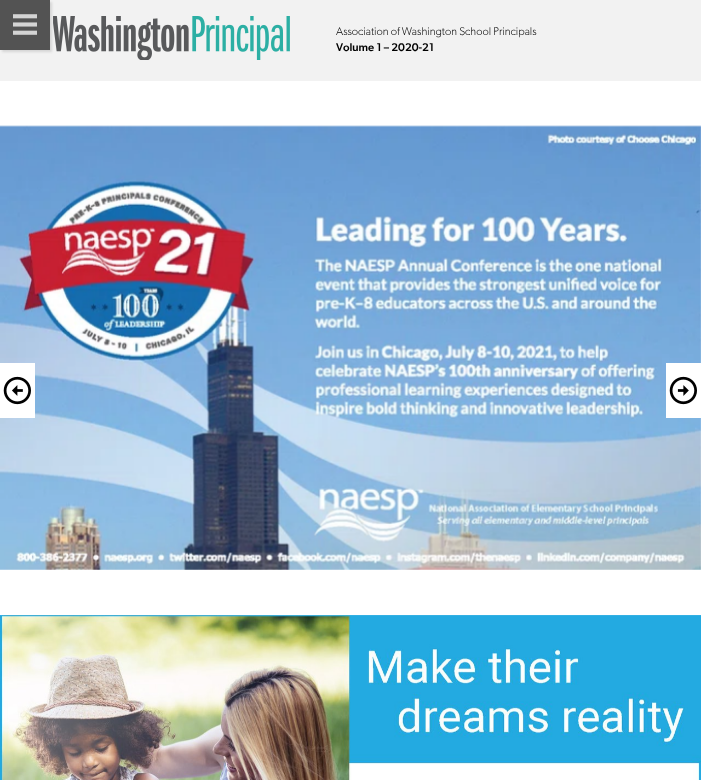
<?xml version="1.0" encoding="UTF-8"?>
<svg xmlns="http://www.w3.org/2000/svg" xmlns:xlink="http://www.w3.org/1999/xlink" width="701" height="780">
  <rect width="100%" height="100%" fill="#ffffff" />
  <rect width="701" height="81" fill="#f2f2f2" />
  <image x="53" y="16" width="237" height="44" xlink:href="image2.png" />
  <rect x="2" y="2" width="50" height="50" fill="#cccccc" fill-opacity="0.75" filter="blur(1px)" />
  <rect width="50" height="50" fill="#535353" />
  <image x="13" y="14" width="24" height="21" xlink:href="image1.png" />
  <image x="0" y="125" width="701" height="445" xlink:href="image3.png" />
  <rect y="363" width="35" height="55" fill="#ffffff" />
  <image x="3" y="376" width="28" height="29" xlink:href="image4.png" />
  <rect x="666" y="363" width="35" height="55" fill="#ffffff" />
  <image x="669" y="376" width="28" height="29" xlink:href="image5.png" />
  <image x="0" y="615" width="701" height="165" xlink:href="image6.png" />
  <text x="336" y="35" style="font-family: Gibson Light; font-size: 11.25px; font-weight: 300; fill: #000000">Association of Washington School Principals</text>
  <text x="336" y="51" style="font-family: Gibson; font-size: 11.25px; font-weight: 500; fill: #000000">Volume 1 – 2020-21</text>
</svg>
